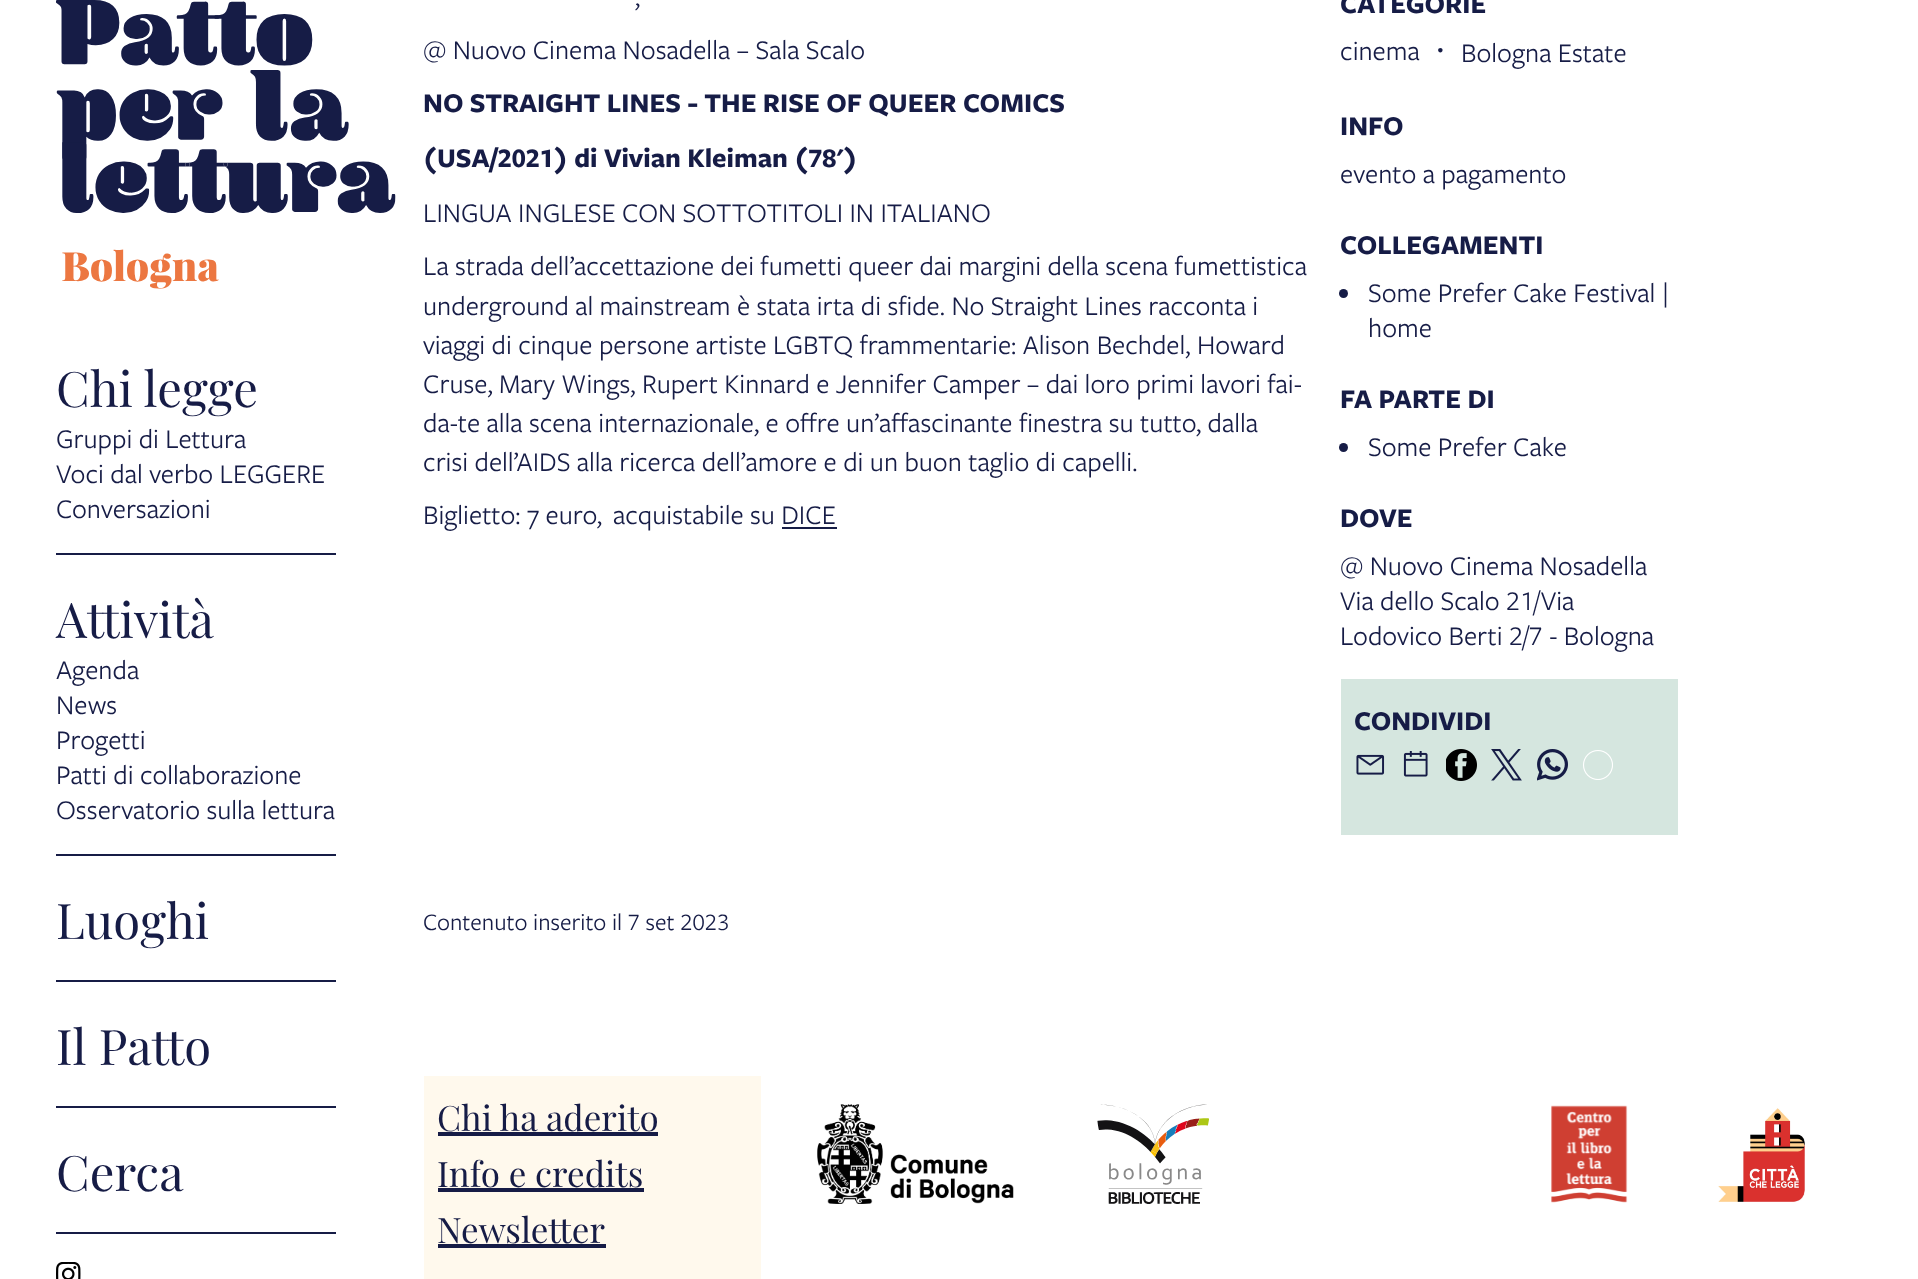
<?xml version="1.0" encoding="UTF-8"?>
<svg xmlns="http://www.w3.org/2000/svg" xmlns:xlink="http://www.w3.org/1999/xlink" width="1918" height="1279">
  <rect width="100%" height="100%" fill="#ffffff" />
  <image x="56" y="0" width="340" height="289" xlink:href="image1.png" />
  <rect x="56" y="553" width="280" height="2" fill="#161c46" />
  <rect x="56" y="854" width="280" height="2" fill="#161c46" />
  <rect x="56" y="980" width="280" height="2" fill="#161c46" />
  <rect x="56" y="1106" width="280" height="2" fill="#161c46" />
  <rect x="56" y="1232" width="280" height="2" fill="#161c46" />
  <image x="56" y="1262" width="25" height="17" xlink:href="image2.png" />
  <rect x="782" y="527" width="55" height="2" fill="#161c46" />
  <circle cx="1343.5" cy="293.5" r="4.5" fill="#161c46" />
  <circle cx="1343.5" cy="447.5" r="4.5" fill="#161c46" />
  <rect x="1341" y="679" width="337" height="156" fill="#d5e6df" />
  <image x="1356" y="754" width="29" height="21" xlink:href="image3.png" />
  <image x="1403" y="751" width="25" height="26" xlink:href="image4.png" />
  <image x="1446" y="749" width="31" height="32" xlink:href="image5.png" />
  <image x="1491" y="749" width="31" height="32" xlink:href="image6.png" />
  <image x="1537" y="749" width="31" height="32" xlink:href="image7.png" />
  <image x="1583" y="750" width="30" height="30" xlink:href="image8.png" />
  <rect x="424" y="1076" width="337" height="203" fill="#fff9ed" />
  <rect x="438" y="1132" width="220" height="4" fill="#161c46" />
  <rect x="438" y="1188" width="206" height="4" fill="#161c46" />
  <rect x="438" y="1244" width="168" height="4" fill="#161c46" />
  <image x="817" y="1104" width="197" height="100" xlink:href="image9.png" />
  <image x="1097" y="1104" width="112" height="100" xlink:href="image10.png" />
  <image x="1551" y="1105" width="77" height="98" xlink:href="image11.png" />
  <image x="1718" y="1108" width="87" height="94" xlink:href="image12.png" />
  <text x="56" y="407" style="font-family: Playfair Display; font-size: 49px; fill: #161c46">Chi legge</text>
  <text x="56" y="448" style="font-family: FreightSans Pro; font-size: 28px; fill: #161c46">Gruppi di Lettura</text>
  <text x="56" y="483" style="font-family: FreightSans Pro; font-size: 28px; fill: #161c46">Voci dal verbo LEGGERE</text>
  <text x="56" y="518" style="font-family: FreightSans Pro; font-size: 28px; fill: #161c46">Conversazioni</text>
  <text x="56" y="638" style="font-family: Playfair Display; font-size: 49px; fill: #161c46">Attività</text>
  <text x="56" y="679" style="font-family: FreightSans Pro; font-size: 28px; fill: #161c46">Agenda</text>
  <text x="56" y="714" style="font-family: FreightSans Pro; font-size: 28px; fill: #161c46">News</text>
  <text x="56" y="749" style="font-family: FreightSans Pro; font-size: 28px; fill: #161c46">Progetti</text>
  <text x="56" y="784" style="font-family: FreightSans Pro; font-size: 28px; fill: #161c46">Patti di collaborazione</text>
  <text x="56" y="819" style="font-family: FreightSans Pro; font-size: 28px; fill: #161c46">Osservatorio sulla lettura</text>
  <text x="56" y="939" style="font-family: Playfair Display; font-size: 49px; fill: #161c46">Luoghi</text>
  <text x="56" y="1065" style="font-family: Playfair Display; font-size: 49px; fill: #161c46">Il Patto</text>
  <text x="56" y="1191" style="font-family: Playfair Display; font-size: 49px; fill: #161c46">Cerca</text>
  <text x="634" y="6" style="font-family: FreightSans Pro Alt; font-size: 28px; fill: #161c46">,</text>
  <text x="423" y="59" style="font-family: FreightSans Pro; font-size: 28px; fill: #161c46">@ Nuovo Cinema Nosadella – Sala Scalo</text>
  <text x="423" y="112" style="font-family: FreightSans Pro; font-size: 28px; font-weight: bold; fill: #161c46">NO STRAIGHT LINES - THE RISE OF QUEER COMICS</text>
  <text x="423" y="167" style="font-family: FreightSans Pro Alt; font-size: 28px; font-weight: bold; fill: #161c46">(USA/2021) di Vivian Kleiman (78')</text>
  <text x="423" y="222" style="font-family: FreightSans Pro; font-size: 28px; fill: #161c46">LINGUA INGLESE CON SOTTOTITOLI IN ITALIANO</text>
  <text x="423" y="275" style="font-family: FreightSans Pro; font-size: 28px; fill: #161c46">La strada dell’accettazione dei fumetti queer dai margini della scena fumettistica</text>
  <text x="423" y="315" style="font-family: FreightSans Pro; font-size: 28px; fill: #161c46">underground al mainstream è stata irta di sfide. No Straight Lines racconta i</text>
  <text x="423" y="354" style="font-family: FreightSans Pro; font-size: 28px; fill: #161c46">viaggi di cinque persone artiste LGBTQ frammentarie: Alison Bechdel, Howard</text>
  <text x="423" y="393" style="font-family: FreightSans Pro; font-size: 28px; fill: #161c46">Cruse, Mary Wings, Rupert Kinnard e Jennifer Camper – dai loro primi lavori fai-</text>
  <text x="423" y="432" style="font-family: FreightSans Pro; font-size: 28px; fill: #161c46">da-te alla scena internazionale, e offre un’affascinante finestra su tutto, dalla</text>
  <text x="423" y="471" style="font-family: FreightSans Pro; font-size: 28px; fill: #161c46">crisi dell’AIDS alla ricerca dell’amore e di un buon taglio di capelli.</text>
  <text x="423" y="524" style="font-family: FreightSans Pro; font-size: 28px; fill: #161c46">Biglietto: 7 euro,</text>
  <text x="613" y="524" style="font-family: FreightSans Pro; font-size: 28px; fill: #161c46">acquistabile su DICE</text>
  <text x="1340" y="13" style="font-family: FreightSans Pro; font-size: 28px; font-weight: bold; fill: #161c46">CATEGORIE</text>
  <text x="1340" y="60" style="font-family: FreightSans Pro; font-size: 28px; fill: #161c46">cinema</text>
  <text x="1426" y="60" style="font-family: WenQuanYi Zen Hei; font-size: 28px; font-weight: 500; fill: #161c46">・</text>
  <text x="1461" y="62" style="font-family: FreightSans Pro; font-size: 28px; fill: #161c46">Bologna Estate</text>
  <text x="1340" y="135" style="font-family: FreightSans Pro; font-size: 28px; font-weight: bold; fill: #161c46">INFO</text>
  <text x="1340" y="183" style="font-family: FreightSans Pro; font-size: 28px; fill: #161c46">evento a pagamento</text>
  <text x="1340" y="254" style="font-family: FreightSans Pro; font-size: 28px; font-weight: bold; fill: #161c46">COLLEGAMENTI</text>
  <text x="1368" y="302" style="font-family: FreightSans Pro; font-size: 28px; fill: #161c46">Some Prefer Cake Festival |</text>
  <text x="1368" y="337" style="font-family: FreightSans Pro; font-size: 28px; fill: #161c46">home</text>
  <text x="1340" y="408" style="font-family: FreightSans Pro; font-size: 28px; font-weight: bold; fill: #161c46">FA PARTE DI</text>
  <text x="1368" y="456" style="font-family: FreightSans Pro; font-size: 28px; fill: #161c46">Some Prefer Cake</text>
  <text x="1340" y="527" style="font-family: FreightSans Pro; font-size: 28px; font-weight: bold; fill: #161c46">DOVE</text>
  <text x="1340" y="575" style="font-family: FreightSans Pro; font-size: 28px; fill: #161c46">@ Nuovo Cinema Nosadella</text>
  <text x="1340" y="610" style="font-family: FreightSans Pro Alt; font-size: 28px; fill: #161c46">Via dello Scalo 21/Via</text>
  <text x="1340" y="645" style="font-family: FreightSans Pro Alt; font-size: 28px; fill: #161c46">Lodovico Berti 2/7 - Bologna</text>
  <text x="1354" y="730" style="font-family: FreightSans Pro; font-size: 28px; font-weight: bold; fill: #161c46">CONDIVIDI</text>
  <text x="423" y="930" style="font-family: FreightSans Pro Alt; font-size: 24.5px; fill: #161c46">Contenuto inserito il 7 set 2023</text>
  <text x="437" y="1131" style="font-family: Playfair Display; font-size: 35px; fill: #161c46">Chi ha aderito</text>
  <text x="437" y="1187" style="font-family: Playfair Display; font-size: 35px; fill: #161c46">Info e credits</text>
  <text x="437" y="1243" style="font-family: Playfair Display; font-size: 35px; fill: #161c46">Newsletter</text>
</svg>
